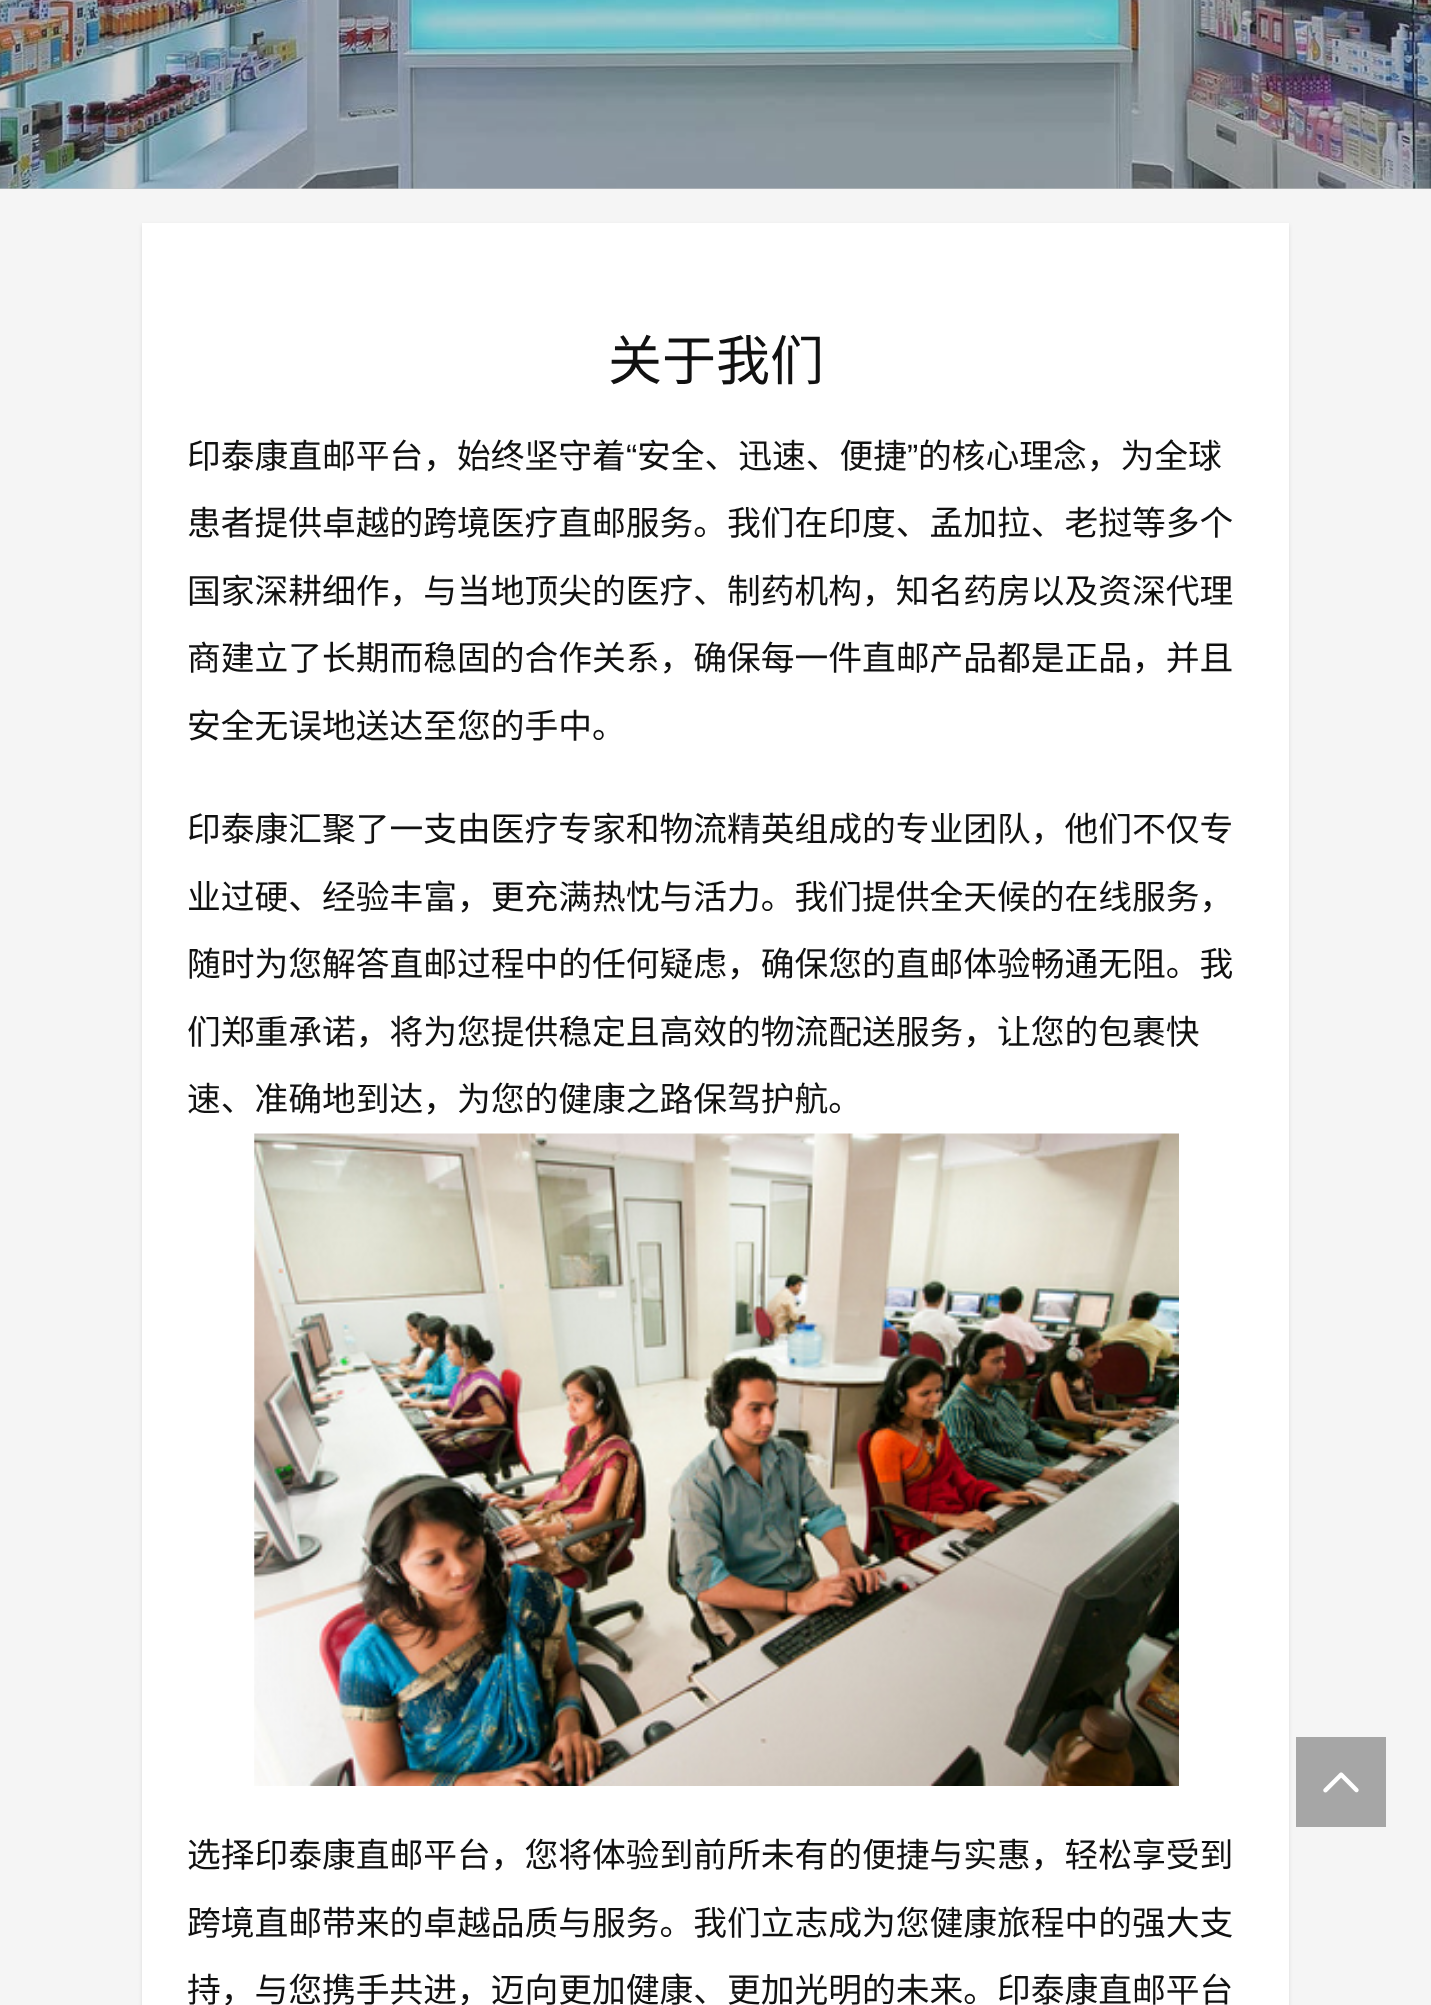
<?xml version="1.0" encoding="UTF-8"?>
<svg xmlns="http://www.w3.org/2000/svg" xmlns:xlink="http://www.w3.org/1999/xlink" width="1431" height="2005">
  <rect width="100%" height="100%" fill="#f5f5f5" />
  <rect y="188" width="1431" height="1" fill="#c8c8c8" />
  <image x="0" y="0" width="1431" height="189" xlink:href="image1.png" />
  <rect x="142" y="225" width="1147" height="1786" fill="#000000" fill-opacity="0.1" filter="blur(2px)" />
  <rect x="142" y="223" width="1147" height="1782" fill="#ffffff" />
  <image x="254" y="1133" width="925" height="653" xlink:href="image2.png" />
  <rect x="1296" y="1737" width="90" height="90" fill="#a6a6a6" />
  <image x="1323" y="1772" width="36" height="21" xlink:href="image3.png" />
  <text x="608" y="380" style="font-family: Noto Sans CJK SC; font-size: 54px; fill: #111111">关于我们</text>
  <text x="187" y="468" style="font-family: Noto Sans CJK SC; font-size: 33.75px; fill: #111111">印泰康直邮平台，始终坚守着</text>
  <text x="626" y="468" style="font-family: Liberation Sans; font-size: 33.75px; fill: #111111">“</text>
  <text x="637" y="468" style="font-family: Noto Sans CJK SC; font-size: 33.75px; fill: #111111">安全、迅速、便捷</text>
  <text x="907" y="468" style="font-family: Liberation Sans; font-size: 33.75px; fill: #111111">”</text>
  <text x="918" y="468" style="font-family: Noto Sans CJK SC; font-size: 33.75px; fill: #111111">的核心理念，为全球</text>
  <text x="187" y="535" style="font-family: Noto Sans CJK SC; font-size: 33.75px; fill: #111111">患者提供卓越的跨境医疗直邮服务。我们在印度、孟加拉、老挝等多个</text>
  <text x="187" y="603" style="font-family: Noto Sans CJK SC; font-size: 33.75px; fill: #111111">国家深耕细作，与当地顶尖的医疗、制药机构，知名药房以及资深代理</text>
  <text x="187" y="670" style="font-family: Noto Sans CJK SC; font-size: 33.75px; fill: #111111">商建立了长期而稳固的合作关系，确保每一件直邮产品都是正品，并且</text>
  <text x="187" y="738" style="font-family: Noto Sans CJK SC; font-size: 33.75px; fill: #111111">安全无误地送达至您的手中。</text>
  <text x="187" y="841" style="font-family: Noto Sans CJK SC; font-size: 33.75px; fill: #111111">印泰康汇聚了一支由医疗专家和物流精英组成的专业团队，他们不仅专</text>
  <text x="187" y="909" style="font-family: Noto Sans CJK SC; font-size: 33.75px; fill: #111111">业过硬、经验丰富，更充满热忱与活力。我们提供全天候的在线服务，</text>
  <text x="187" y="976" style="font-family: Noto Sans CJK SC; font-size: 33.75px; fill: #111111">随时为您解答直邮过程中的任何疑虑，确保您的直邮体验畅通无阻。我</text>
  <text x="187" y="1044" style="font-family: Noto Sans CJK SC; font-size: 33.75px; fill: #111111">们郑重承诺，将为您提供稳定且高效的物流配送服务，让您的包裹快</text>
  <text x="187" y="1111" style="font-family: Noto Sans CJK SC; font-size: 33.75px; fill: #111111">速、准确地到达，为您的健康之路保驾护航。</text>
  <text x="187" y="1867" style="font-family: Noto Sans CJK SC; font-size: 33.75px; fill: #111111">选择印泰康直邮平台，您将体验到前所未有的便捷与实惠，轻松享受到</text>
  <text x="187" y="1935" style="font-family: Noto Sans CJK SC; font-size: 33.75px; fill: #111111">跨境直邮带来的卓越品质与服务。我们立志成为您健康旅程中的强大支</text>
  <text x="187" y="2002" style="font-family: Noto Sans CJK SC; font-size: 33.75px; fill: #111111">持，与您携手共进，迈向更加健康、更加光明的未来。印泰康直邮平台</text>
</svg>
